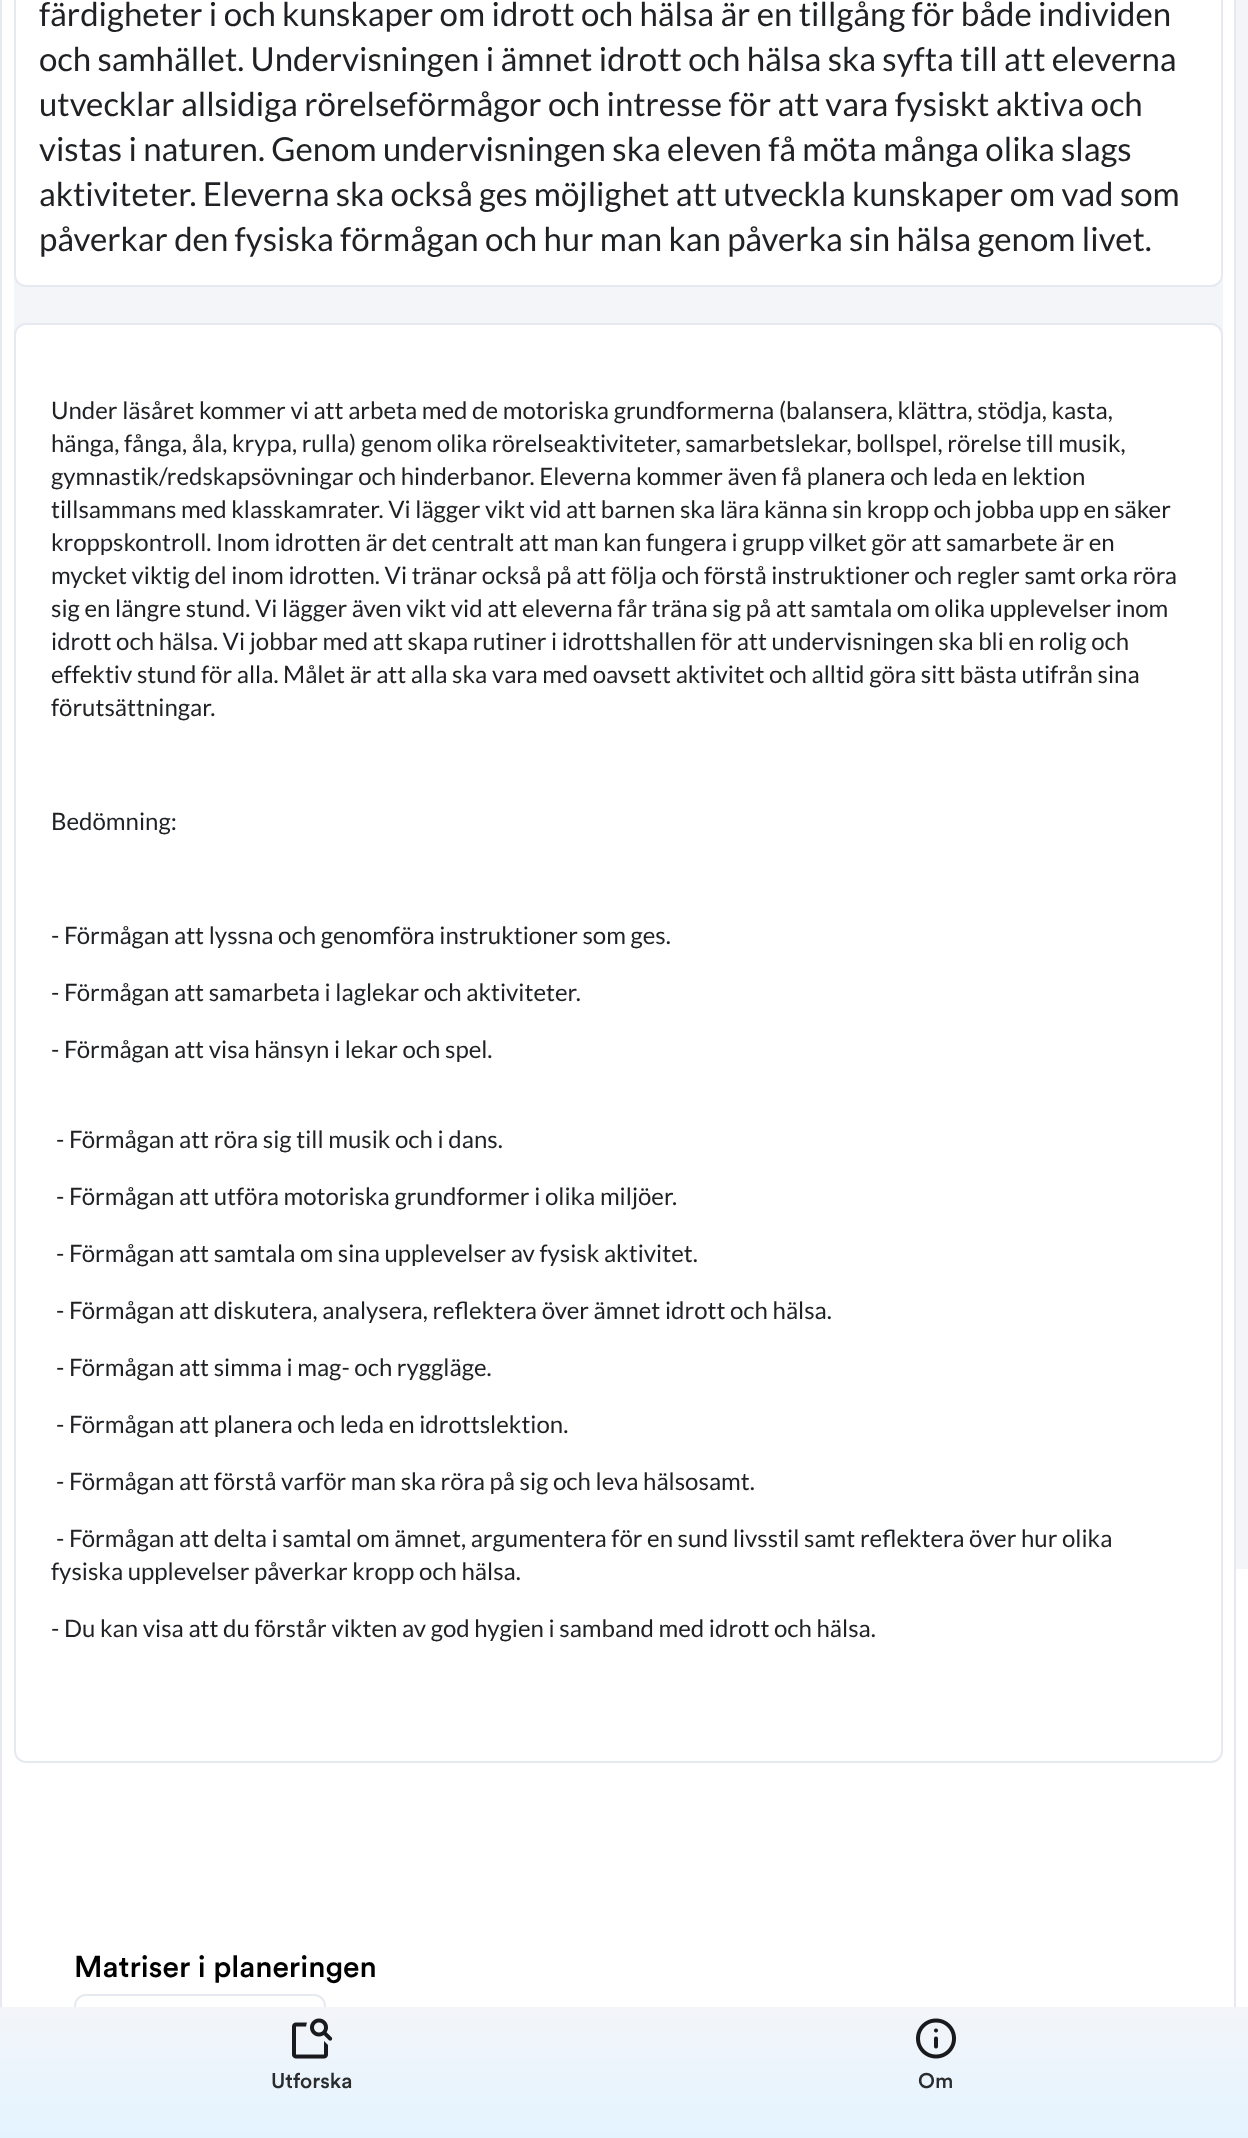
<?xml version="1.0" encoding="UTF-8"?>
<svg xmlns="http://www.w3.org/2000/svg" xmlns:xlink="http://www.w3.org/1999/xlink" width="1248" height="2138">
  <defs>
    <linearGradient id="g1" gradientUnits="userSpaceOnUse" x1="624" y1="2007" x2="624" y2="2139"><stop offset="0" stop-color="#f3f5f9" /><stop offset="1" stop-color="#e4f4ff" /></linearGradient>
  </defs>
  <rect width="100%" height="100%" fill="#ffffff" />
  <rect x="1236" width="12" height="1569" fill="#f3f5f9" />
  <rect x="1" y="-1" width="1234" height="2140" fill="none" stroke="#e6e9f0" stroke-width="2" />
  <rect x="14" y="-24" width="1209" height="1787" rx="24" fill="#f3f5f9" />
  <rect x="15" y="-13" width="1207" height="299" rx="11" fill="#ffffff" stroke="#e6e9f0" stroke-width="2" />
  <rect x="15" y="324" width="1207" height="1438" rx="11" fill="#ffffff" stroke="#e6e9f0" stroke-width="2" />
  <rect x="75" y="1995" width="250" height="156" rx="11" fill="none" stroke="#e6e9f0" stroke-width="2" />
  <rect y="2007" width="1248" height="131" fill="url(#g1)" />
  <image x="292" y="2018" width="41" height="41" xlink:href="image1.png" />
  <image x="916" y="2018" width="40" height="41" xlink:href="image2.png" />
  <text x="39" y="26" style="font-family: Lato; font-size: 33px; fill: #1f2124">färdigheter i och kunskaper om idrott och hälsa är en tillgång för både individen</text>
  <text x="39" y="71" style="font-family: Lato; font-size: 33px; fill: #1f2124">och samhället. Undervisningen i ämnet idrott och hälsa ska syfta till att eleverna</text>
  <text x="39" y="116" style="font-family: Lato; font-size: 33px; fill: #1f2124">utvecklar allsidiga rörelseförmågor och intresse för att vara fysiskt aktiva och</text>
  <text x="39" y="161" style="font-family: Lato; font-size: 33px; fill: #1f2124">vistas i naturen. Genom undervisningen ska eleven få möta många olika slags</text>
  <text x="39" y="206" style="font-family: Lato; font-size: 33px; fill: #1f2124">aktiviteter. Eleverna ska också ges möjlighet att utveckla kunskaper om vad som</text>
  <text x="39" y="251" style="font-family: Lato; font-size: 33px; fill: #1f2124">påverkar den fysiska förmågan och hur man kan påverka sin hälsa genom livet.</text>
  <text x="51" y="419" style="font-family: Lato; font-size: 24px; fill: #1f2124">Under läsåret kommer vi att arbeta med de motoriska grundformerna (balansera, klättra, stödja, kasta,</text>
  <text x="51" y="452" style="font-family: Lato; font-size: 24px; fill: #1f2124">hänga, fånga, åla, krypa, rulla) genom olika rörelseaktiviteter, samarbetslekar, bollspel, rörelse till musik,</text>
  <text x="51" y="485" style="font-family: Lato; font-size: 24px; fill: #1f2124">gymnastik/redskapsövningar och hinderbanor. Eleverna kommer även få planera och leda en lektion</text>
  <text x="51" y="518" style="font-family: Lato; font-size: 24px; fill: #1f2124">tillsammans med klasskamrater. Vi lägger vikt vid att barnen ska lära känna sin kropp och jobba upp en säker</text>
  <text x="51" y="551" style="font-family: Lato; font-size: 24px; fill: #1f2124">kroppskontroll. Inom idrotten är det centralt att man kan fungera i grupp vilket gör att samarbete är en</text>
  <text x="51" y="584" style="font-family: Lato; font-size: 24px; fill: #1f2124">mycket viktig del inom idrotten. Vi tränar också på att följa och förstå instruktioner och regler samt orka röra</text>
  <text x="51" y="617" style="font-family: Lato; font-size: 24px; fill: #1f2124">sig en längre stund. Vi lägger även vikt vid att eleverna får träna sig på att samtala om olika upplevelser inom</text>
  <text x="51" y="650" style="font-family: Lato; font-size: 24px; fill: #1f2124">idrott och hälsa. Vi jobbar med att skapa rutiner i idrottshallen för att undervisningen ska bli en rolig och</text>
  <text x="51" y="683" style="font-family: Lato; font-size: 24px; fill: #1f2124">effektiv stund för alla. Målet är att alla ska vara med oavsett aktivitet och alltid göra sitt bästa utifrån sina</text>
  <text x="51" y="716" style="font-family: Lato; font-size: 24px; fill: #1f2124">förutsättningar.</text>
  <text x="51" y="830" style="font-family: Lato; font-size: 24px; fill: #1f2124">Bedömning:</text>
  <text x="51" y="944" style="font-family: Lato; font-size: 24px; fill: #1f2124">- Förmågan att lyssna och genomföra instruktioner som ges.</text>
  <text x="51" y="1001" style="font-family: Lato; font-size: 24px; fill: #1f2124">- Förmågan att samarbeta i laglekar och aktiviteter.</text>
  <text x="51" y="1058" style="font-family: Lato; font-size: 24px; fill: #1f2124">- Förmågan att visa hänsyn i lekar och spel.</text>
  <text x="56" y="1148" style="font-family: Lato; font-size: 24px; fill: #1f2124">- Förmågan att röra sig till musik och i dans.</text>
  <text x="56" y="1205" style="font-family: Lato; font-size: 24px; fill: #1f2124">- Förmågan att utföra motoriska grundformer i olika miljöer.</text>
  <text x="56" y="1262" style="font-family: Lato; font-size: 24px; fill: #1f2124">- Förmågan att samtala om sina upplevelser av fysisk aktivitet.</text>
  <text x="56" y="1319" style="font-family: Lato; font-size: 24px; fill: #1f2124">- Förmågan att diskutera, analysera, reflektera över ämnet idrott och hälsa.</text>
  <text x="56" y="1376" style="font-family: Lato; font-size: 24px; fill: #1f2124">- Förmågan att simma i mag- och ryggläge.</text>
  <text x="56" y="1433" style="font-family: Lato; font-size: 24px; fill: #1f2124">- Förmågan att planera och leda en idrottslektion.</text>
  <text x="56" y="1490" style="font-family: Lato; font-size: 24px; fill: #1f2124">- Förmågan att förstå varför man ska röra på sig och leva hälsosamt.</text>
  <text x="56" y="1547" style="font-family: Lato; font-size: 24px; fill: #1f2124">- Förmågan att delta i samtal om ämnet, argumentera för en sund livsstil samt reflektera över hur olika</text>
  <text x="51" y="1580" style="font-family: Lato; font-size: 24px; fill: #1f2124">fysiska upplevelser påverkar kropp och hälsa.</text>
  <text x="51" y="1637" style="font-family: Lato; font-size: 24px; fill: #1f2124">- Du kan visa att du förstår vikten av god hygien i samband med idrott och hälsa.</text>
  <text x="74" y="1977" style="font-family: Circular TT; font-size: 30px; font-weight: 500; fill: #000000">Matriser i planeringen</text>
  <text x="271" y="2088" style="font-family: Circular TT; font-size: 21px; font-weight: 500; fill: #2a2c2e">Utforska</text>
  <text x="918" y="2088" style="font-family: Circular TT; font-size: 21px; font-weight: 500; fill: #2a2c2e">Om</text>
</svg>
